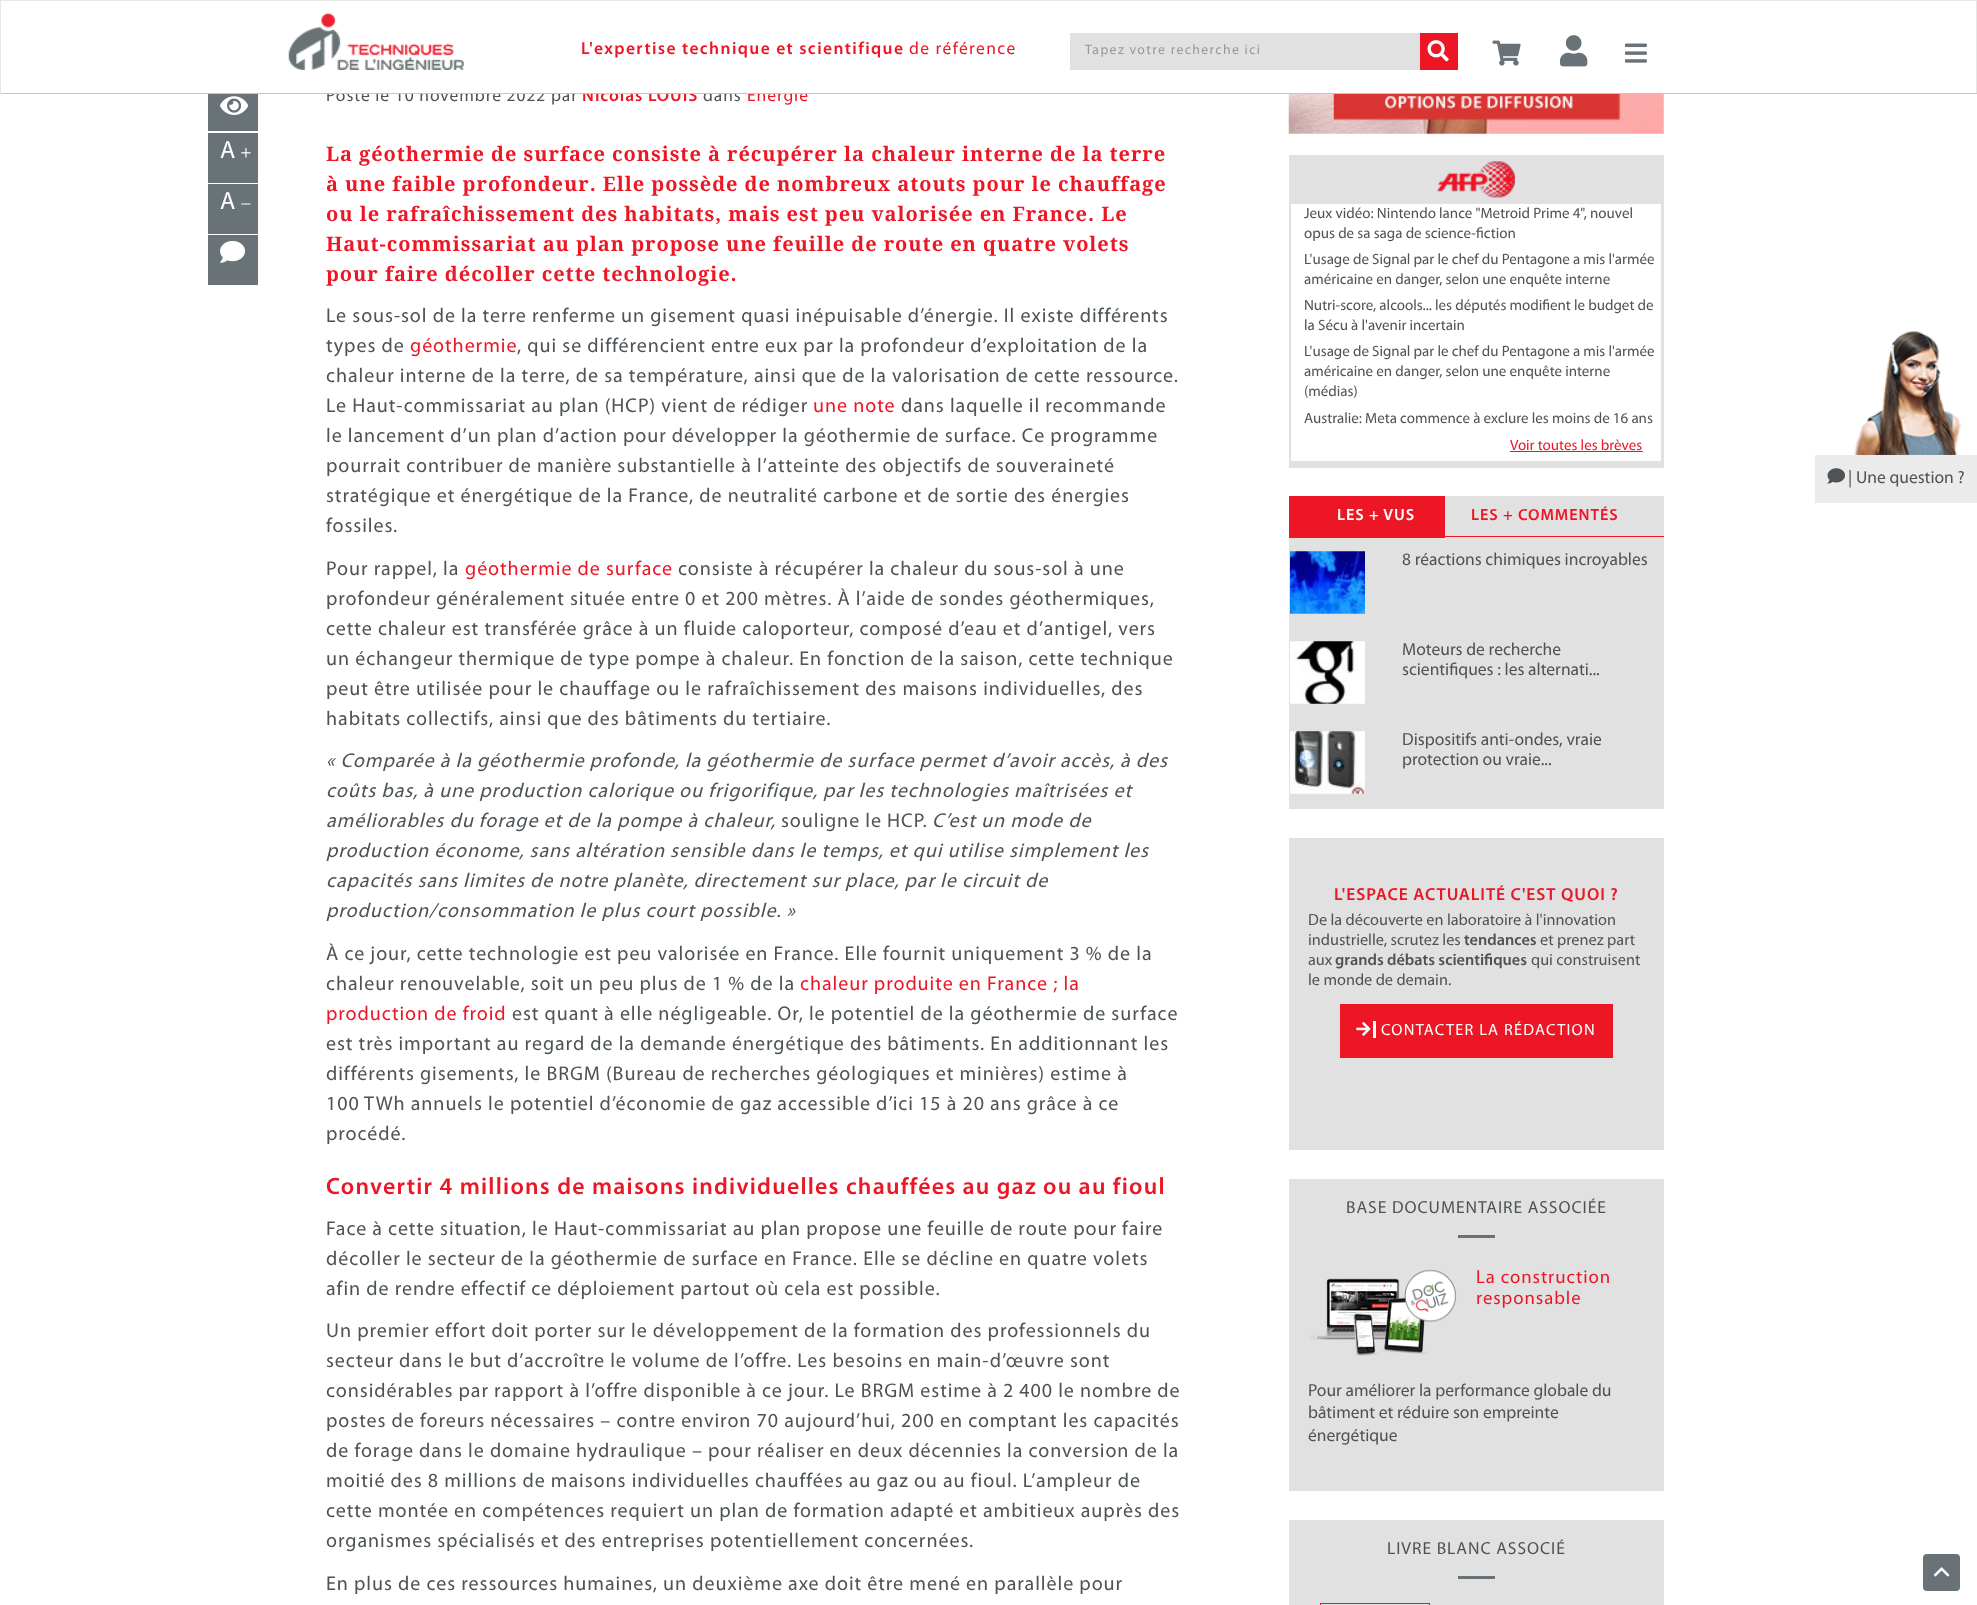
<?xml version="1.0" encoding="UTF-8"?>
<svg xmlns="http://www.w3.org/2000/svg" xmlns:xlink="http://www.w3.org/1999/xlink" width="1977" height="1605">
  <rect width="100%" height="100%" fill="#ffffff" />
  <rect width="1977" height="1" fill="#e7e7e7" />
  <rect x="1976" width="1" height="94" fill="#e7e7e7" />
  <image x="288" y="13" width="176" height="57" xlink:href="image1.png" />
  <rect x="1070" y="33" width="350" height="37" fill="#e2e1e1" />
  <rect x="1420" y="33" width="38" height="37" fill="#ec1625" />
  <image x="1427" y="40" width="22" height="22" xlink:href="image2.png" />
  <image x="1492" y="40" width="29" height="26" xlink:href="image3.png" />
  <image x="1560" y="35" width="28" height="32" xlink:href="image4.png" />
  <image x="1625" y="43" width="22" height="20" xlink:href="image5.png" />
  <rect x="208" y="94" width="50" height="37" fill="#697277" />
  <image x="220" y="96" width="29" height="19" xlink:href="image6.png" />
  <rect x="208" y="133" width="50" height="50" fill="#697277" />
  <image x="241" y="148" width="10" height="10" xlink:href="image7.png" />
  <rect x="208" y="184" width="50" height="50" fill="#697277" />
  <path d="M 250.5 203.5 v 1 h -9 l -0.5 -1 z" fill="#ffffff" />
  <rect x="208" y="235" width="50" height="50" fill="#697277" />
  <image x="220" y="240" width="25" height="23" xlink:href="image8.png" />
  <image x="1288" y="94" width="376" height="40" xlink:href="image9.png" />
  <rect x="1289" y="155" width="375" height="313" fill="#e2e1e1" />
  <image x="1437" y="161" width="78" height="37" xlink:href="image10.png" />
  <rect x="1291" y="204" width="370" height="257" fill="#ffffff" />
  <rect x="1510" y="451" width="133" height="1" fill="#ec1625" />
  <rect x="1289" y="496" width="156" height="42" fill="#ec1625" />
  <rect x="1445" y="496" width="219" height="42" fill="#e2e1e1" />
  <rect x="1445" y="536" width="219" height="1" fill="#ec1625" />
  <rect x="1289" y="538" width="375" height="271" fill="#e2e1e1" />
  <image x="1290" y="551" width="75" height="63" xlink:href="image11.png" />
  <image x="1290" y="641" width="75" height="63" xlink:href="image12.png" />
  <image x="1290" y="731" width="75" height="63" xlink:href="image13.png" />
  <rect x="1289" y="838" width="375" height="312" fill="#e2e1e1" />
  <rect x="1340" y="1004" width="273" height="54" fill="#ec1625" />
  <rect x="1373" y="1021" width="3" height="17" fill="#ffffff" />
  <image x="1356" y="1022" width="15" height="14" xlink:href="image14.png" />
  <rect x="1289" y="1179" width="375" height="312" fill="#e2e1e1" />
  <rect x="1458" y="1235" width="37" height="3" fill="#697277" />
  <image x="1310" y="1269" width="147" height="87" xlink:href="image15.png" />
  <rect x="1289" y="1520" width="375" height="85" fill="#e2e1e1" />
  <rect x="1458" y="1576" width="37" height="3" fill="#697277" />
  <rect x="1320.5" y="1603.5" width="109" height="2" fill="none" stroke="#ec1625" />
  <image x="1854" y="330" width="108" height="125" xlink:href="image16.png" />
  <rect x="1815" y="455" width="162" height="48" fill="#ebebeb" />
  <image x="1827" y="468" width="18" height="16" xlink:href="image17.png" />
  <rect x="1923" y="1554" width="37" height="37" rx="4" fill="#697277" />
  <image x="1933" y="1567" width="17" height="10" xlink:href="image18.png" />
  <text x="581" y="54" style="font-family: Myriad; font-size: 17.5px; font-weight: 600; letter-spacing: 1.4px; fill: #ec1625">L'expertise technique et scientifique</text>
  <text x="909" y="54" style="font-family: Myriad; font-size: 17.5px; letter-spacing: 1.4px; fill: #ec1625">de référence</text>
  <text x="1085" y="54" style="font-family: Myriad; font-size: 13.75px; letter-spacing: 1.4px; fill: #999999">Tapez votre recherche ici</text>
  <text x="326" y="101" style="font-family: Myriad; font-size: 17.5px; letter-spacing: 0.95px; fill: #4d5356">Posté le 10 novembre 2022 par</text>
  <text x="582" y="101" style="font-family: Myriad; font-size: 17.5px; font-weight: 600; letter-spacing: 0.95px; fill: #ec1625">Nicolas LOUIS</text>
  <text x="703" y="101" style="font-family: Myriad; font-size: 17.5px; letter-spacing: 0.95px; fill: #4d5356">dans</text>
  <text x="747" y="101" style="font-family: Myriad; font-size: 17.5px; letter-spacing: 0.95px; fill: #ec1625">Énergie</text>
  <rect y="93" width="1977" height="1" fill="#c6c6c6" />
  <rect width="1" height="94" fill="#e7e7e7" />
  <rect x="327" y="86" width="479" height="7" fill="#ffffff" />
  <text x="220" y="158" style="font-family: Myriad; font-size: 25px; letter-spacing: 0.95px; fill: #ffffff">A</text>
  <text x="220" y="209" style="font-family: Myriad; font-size: 25px; letter-spacing: 0.95px; fill: #ffffff">A</text>
  <text x="326" y="161" style="font-family: Droid Serif; font-size: 20px; font-weight: bold; letter-spacing: 0.95px; fill: #ec1625">La géothermie de surface consiste à récupérer la chaleur interne de la terre</text>
  <text x="326" y="191" style="font-family: Droid Serif; font-size: 20px; font-weight: bold; letter-spacing: 0.95px; fill: #ec1625">à une faible profondeur. Elle possède de nombreux atouts pour le chauffage</text>
  <text x="326" y="221" style="font-family: Droid Serif; font-size: 20px; font-weight: bold; letter-spacing: 0.95px; fill: #ec1625">ou le rafraîchissement des habitats, mais est peu valorisée en France. Le</text>
  <text x="326" y="251" style="font-family: Droid Serif; font-size: 20px; font-weight: bold; letter-spacing: 0.95px; fill: #ec1625">Haut-commissariat au plan propose une feuille de route en quatre volets</text>
  <text x="326" y="281" style="font-family: Droid Serif; font-size: 20px; font-weight: bold; letter-spacing: 0.95px; fill: #ec1625">pour faire décoller cette technologie.</text>
  <text x="326" y="322" style="font-family: Myriad; font-size: 20px; letter-spacing: 0.95px; fill: #4d5356">Le sous-sol de la terre renferme un gisement quasi inépuisable d’énergie. Il existe différents</text>
  <text x="326" y="352" style="font-family: Myriad; font-size: 20px; letter-spacing: 0.95px; fill: #4d5356">types de</text>
  <text x="410" y="352" style="font-family: Myriad; font-size: 20px; letter-spacing: 0.95px; fill: #ec1625">géothermie</text>
  <text x="517" y="352" style="font-family: Myriad; font-size: 20px; letter-spacing: 0.95px; fill: #4d5356">, qui se différencient entre eux par la profondeur d’exploitation de la</text>
  <text x="326" y="382" style="font-family: Myriad; font-size: 20px; letter-spacing: 0.95px; fill: #4d5356">chaleur interne de la terre, de sa température, ainsi que de la valorisation de cette ressource.</text>
  <text x="326" y="412" style="font-family: Myriad; font-size: 20px; letter-spacing: 0.95px; fill: #4d5356">Le Haut-commissariat au plan (HCP) vient de rédiger</text>
  <text x="813" y="412" style="font-family: Myriad; font-size: 20px; letter-spacing: 0.95px; fill: #ec1625">une note</text>
  <text x="901" y="412" style="font-family: Myriad; font-size: 20px; letter-spacing: 0.95px; fill: #4d5356">dans laquelle il recommande</text>
  <text x="326" y="442" style="font-family: Myriad; font-size: 20px; letter-spacing: 0.95px; fill: #4d5356">le lancement d’un plan d’action pour développer la géothermie de surface. Ce programme</text>
  <text x="326" y="472" style="font-family: Myriad; font-size: 20px; letter-spacing: 0.95px; fill: #4d5356">pourrait contribuer de manière substantielle à l’atteinte des objectifs de souveraineté</text>
  <text x="326" y="502" style="font-family: Myriad; font-size: 20px; letter-spacing: 0.95px; fill: #4d5356">stratégique et énergétique de la France, de neutralité carbone et de sortie des énergies</text>
  <text x="326" y="532" style="font-family: Myriad; font-size: 20px; letter-spacing: 0.95px; fill: #4d5356">fossiles.</text>
  <text x="326" y="575" style="font-family: Myriad; font-size: 20px; letter-spacing: 0.95px; fill: #4d5356">Pour rappel, la</text>
  <text x="465" y="575" style="font-family: Myriad; font-size: 20px; letter-spacing: 0.95px; fill: #ec1625">géothermie de surface</text>
  <text x="678" y="575" style="font-family: Myriad; font-size: 20px; letter-spacing: 0.95px; fill: #4d5356">consiste à récupérer la chaleur du sous-sol à une</text>
  <text x="326" y="605" style="font-family: Myriad; font-size: 20px; letter-spacing: 0.95px; fill: #4d5356">profondeur généralement située entre 0 et 200 mètres. À l’aide de sondes géothermiques,</text>
  <text x="326" y="635" style="font-family: Myriad; font-size: 20px; letter-spacing: 0.95px; fill: #4d5356">cette chaleur est transférée grâce à un fluide caloporteur, composé d’eau et d’antigel, vers</text>
  <text x="326" y="665" style="font-family: Myriad; font-size: 20px; letter-spacing: 0.95px; fill: #4d5356">un échangeur thermique de type pompe à chaleur. En fonction de la saison, cette technique</text>
  <text x="326" y="695" style="font-family: Myriad; font-size: 20px; letter-spacing: 0.95px; fill: #4d5356">peut être utilisée pour le chauffage ou le rafraîchissement des maisons individuelles, des</text>
  <text x="326" y="725" style="font-family: Myriad; font-size: 20px; letter-spacing: 0.95px; fill: #4d5356">habitats collectifs, ainsi que des bâtiments du tertiaire.</text>
  <text x="326" y="767" style="font-family: Myriad; font-size: 20px; font-style: italic; letter-spacing: 0.95px; fill: #4d5356">« Comparée à la géothermie profonde, la géothermie de surface permet d’avoir accès, à des</text>
  <text x="326" y="797" style="font-family: Myriad; font-size: 20px; font-style: italic; letter-spacing: 0.95px; fill: #4d5356">coûts bas, à une production calorique ou frigorifique, par les technologies maîtrisées et</text>
  <text x="326" y="827" style="font-family: Myriad; font-size: 20px; font-style: italic; letter-spacing: 0.95px; fill: #4d5356">améliorables du forage et de la pompe à chaleur,</text>
  <text x="781" y="827" style="font-family: Myriad; font-size: 20px; letter-spacing: 0.95px; fill: #4d5356">souligne le HCP.</text>
  <text x="932" y="827" style="font-family: Myriad; font-size: 20px; font-style: italic; letter-spacing: 0.95px; fill: #4d5356">C’est un mode de</text>
  <text x="326" y="857" style="font-family: Myriad; font-size: 20px; font-style: italic; letter-spacing: 0.95px; fill: #4d5356">production économe, sans altération sensible dans le temps, et qui utilise simplement les</text>
  <text x="326" y="887" style="font-family: Myriad; font-size: 20px; font-style: italic; letter-spacing: 0.95px; fill: #4d5356">capacités sans limites de notre planète, directement sur place, par le circuit de</text>
  <text x="326" y="917" style="font-family: Myriad; font-size: 20px; font-style: italic; letter-spacing: 0.95px; fill: #4d5356">production/consommation le plus court possible. »</text>
  <text x="326" y="960" style="font-family: Myriad; font-size: 20px; letter-spacing: 0.95px; fill: #4d5356">À ce jour, cette technologie est peu valorisée en France. Elle fournit uniquement 3 % de la</text>
  <text x="326" y="990" style="font-family: Myriad; font-size: 20px; letter-spacing: 0.95px; fill: #4d5356">chaleur renouvelable, soit un peu plus de 1 % de la</text>
  <text x="800" y="990" style="font-family: Myriad; font-size: 20px; letter-spacing: 0.95px; fill: #ec1625">chaleur produite en France ; la</text>
  <text x="326" y="1020" style="font-family: Myriad; font-size: 20px; letter-spacing: 0.95px; fill: #ec1625">production de froid</text>
  <text x="512" y="1020" style="font-family: Myriad; font-size: 20px; letter-spacing: 0.95px; fill: #4d5356">est quant à elle négligeable. Or, le potentiel de la géothermie de surface</text>
  <text x="326" y="1050" style="font-family: Myriad; font-size: 20px; letter-spacing: 0.95px; fill: #4d5356">est très important au regard de la demande énergétique des bâtiments. En additionnant les</text>
  <text x="326" y="1080" style="font-family: Myriad; font-size: 20px; letter-spacing: 0.95px; fill: #4d5356">différents gisements, le BRGM (Bureau de recherches géologiques et minières) estime à</text>
  <text x="326" y="1110" style="font-family: Myriad; font-size: 20px; letter-spacing: 0.95px; fill: #4d5356">100 TWh annuels le potentiel d’économie de gaz accessible d’ici 15 à 20 ans grâce à ce</text>
  <text x="326" y="1140" style="font-family: Myriad; font-size: 20px; letter-spacing: 0.95px; fill: #4d5356">procédé.</text>
  <text x="326" y="1194" style="font-family: Myriad; font-size: 23.75px; font-weight: 600; letter-spacing: 1.25px; fill: #ec1625">Convertir 4 millions de maisons individuelles chauffées au gaz ou au fioul</text>
  <text x="326" y="1235" style="font-family: Myriad; font-size: 20px; letter-spacing: 0.95px; fill: #4d5356">Face à cette situation, le Haut-commissariat au plan propose une feuille de route pour faire</text>
  <text x="326" y="1265" style="font-family: Myriad; font-size: 20px; letter-spacing: 0.95px; fill: #4d5356">décoller le secteur de la géothermie de surface en France. Elle se décline en quatre volets</text>
  <text x="326" y="1295" style="font-family: Myriad; font-size: 20px; letter-spacing: 0.95px; fill: #4d5356">afin de rendre effectif ce déploiement partout où cela est possible.</text>
  <text x="326" y="1337" style="font-family: Myriad; font-size: 20px; letter-spacing: 0.95px; fill: #4d5356">Un premier effort doit porter sur le développement de la formation des professionnels du</text>
  <text x="326" y="1367" style="font-family: Myriad; font-size: 20px; letter-spacing: 0.95px; fill: #4d5356">secteur dans le but d’accroître le volume de l’offre. Les besoins en main-d’œuvre sont</text>
  <text x="326" y="1397" style="font-family: Myriad; font-size: 20px; letter-spacing: 0.95px; fill: #4d5356">considérables par rapport à l’offre disponible à ce jour. Le BRGM estime à 2 400 le nombre de</text>
  <text x="326" y="1427" style="font-family: Myriad; font-size: 20px; letter-spacing: 0.95px; fill: #4d5356">postes de foreurs nécessaires – contre environ 70 aujourd’hui, 200 en comptant les capacités</text>
  <text x="326" y="1457" style="font-family: Myriad; font-size: 20px; letter-spacing: 0.95px; fill: #4d5356">de forage dans le domaine hydraulique – pour réaliser en deux décennies la conversion de la</text>
  <text x="326" y="1487" style="font-family: Myriad; font-size: 20px; letter-spacing: 0.95px; fill: #4d5356">moitié des 8 millions de maisons individuelles chauffées au gaz ou au fioul. L’ampleur de</text>
  <text x="326" y="1517" style="font-family: Myriad; font-size: 20px; letter-spacing: 0.95px; fill: #4d5356">cette montée en compétences requiert un plan de formation adapté et ambitieux auprès des</text>
  <text x="326" y="1547" style="font-family: Myriad; font-size: 20px; letter-spacing: 0.95px; fill: #4d5356">organismes spécialisés et des entreprises potentiellement concernées.</text>
  <text x="326" y="1590" style="font-family: Myriad; font-size: 20px; letter-spacing: 0.95px; fill: #4d5356">En plus de ces ressources humaines, un deuxième axe doit être mené en parallèle pour</text>
  <text x="1304" y="218" style="font-family: Myriad; font-size: 15px; fill: #4d5356">Jeux vidéo: Nintendo lance "Metroid Prime 4", nouvel</text>
  <text x="1304" y="238" style="font-family: Myriad; font-size: 15px; fill: #4d5356">opus de sa saga de science-fiction</text>
  <text x="1304" y="264" style="font-family: Myriad; font-size: 15px; fill: #4d5356">L'usage de Signal par le chef du Pentagone a mis l'armée</text>
  <text x="1304" y="284" style="font-family: Myriad; font-size: 15px; fill: #4d5356">américaine en danger, selon une enquête interne</text>
  <text x="1304" y="310" style="font-family: Myriad; font-size: 15px; fill: #4d5356">Nutri-score, alcools... les députés modifient le budget de</text>
  <text x="1304" y="330" style="font-family: Myriad; font-size: 15px; fill: #4d5356">la Sécu à l'avenir incertain</text>
  <text x="1304" y="356" style="font-family: Myriad; font-size: 15px; fill: #4d5356">L'usage de Signal par le chef du Pentagone a mis l'armée</text>
  <text x="1304" y="376" style="font-family: Myriad; font-size: 15px; fill: #4d5356">américaine en danger, selon une enquête interne</text>
  <text x="1304" y="396" style="font-family: Myriad; font-size: 15px; fill: #4d5356">(médias)</text>
  <text x="1304" y="423" style="font-family: Myriad; font-size: 15px; fill: #4d5356">Australie: Meta commence à exclure les moins de 16 ans</text>
  <text x="1510" y="450" style="font-family: Myriad; font-size: 15px; fill: #ec1625">Voir toutes les brèves</text>
  <text x="1337" y="520" style="font-family: Myriad; font-size: 16.25px; font-weight: 600; letter-spacing: 0.95px; fill: #ffffff">LES + VUS</text>
  <text x="1471" y="520" style="font-family: Myriad; font-size: 16.25px; font-weight: 600; letter-spacing: 0.95px; fill: #ec1625">LES + COMMENTÉS</text>
  <text x="1402" y="565" style="font-family: Myriad; font-size: 17.5px; fill: #4d5356">8 réactions chimiques incroyables</text>
  <text x="1402" y="655" style="font-family: Myriad; font-size: 17.5px; fill: #4d5356">Moteurs de recherche</text>
  <text x="1402" y="675" style="font-family: Myriad; font-size: 17.5px; fill: #4d5356">scientifiques : les alternati...</text>
  <text x="1402" y="745" style="font-family: Myriad; font-size: 17.5px; fill: #4d5356">Dispositifs anti-ondes, vraie</text>
  <text x="1402" y="765" style="font-family: Myriad; font-size: 17.5px; fill: #4d5356">protection ou vraie...</text>
  <text x="1334" y="900" style="font-family: Myriad; font-size: 17.5px; font-weight: 600; letter-spacing: 0.95px; fill: #ec1625">L'ESPACE ACTUALITÉ C'EST QUOI ?</text>
  <text x="1308" y="925" style="font-family: Myriad; font-size: 16.25px; fill: #4d5356">De la découverte en laboratoire à l'innovation</text>
  <text x="1308" y="945" style="font-family: Myriad; font-size: 16.25px; fill: #4d5356">industrielle, scrutez les</text>
  <text x="1464" y="945" style="font-family: Myriad; font-size: 16.25px; font-weight: 600; fill: #4d5356">tendances</text>
  <text x="1540" y="945" style="font-family: Myriad; font-size: 16.25px; fill: #4d5356">et prenez part</text>
  <text x="1308" y="965" style="font-family: Myriad; font-size: 16.25px; fill: #4d5356">aux</text>
  <text x="1335" y="965" style="font-family: Myriad; font-size: 16.25px; font-weight: 600; fill: #4d5356">grands débats scientifiques</text>
  <text x="1531" y="965" style="font-family: Myriad; font-size: 16.25px; fill: #4d5356">qui construisent</text>
  <text x="1308" y="985" style="font-family: Myriad; font-size: 16.25px; fill: #4d5356">le monde de demain.</text>
  <text x="1381" y="1035" style="font-family: Myriad; font-size: 16.25px; letter-spacing: 1.25px; fill: #ffffff">CONTACTER LA RÉDACTION</text>
  <text x="1346" y="1213" style="font-family: Myriad; font-size: 17.5px; letter-spacing: 0.95px; fill: #4d5356">BASE DOCUMENTAIRE ASSOCIÉE</text>
  <text x="1476" y="1283" style="font-family: Myriad; font-size: 18.75px; letter-spacing: 0.95px; fill: #ec1625">La construction</text>
  <text x="1476" y="1304" style="font-family: Myriad; font-size: 18.75px; letter-spacing: 0.95px; fill: #ec1625">responsable</text>
  <text x="1308" y="1396" style="font-family: Myriad; font-size: 17.5px; fill: #4d5356">Pour améliorer la performance globale du</text>
  <text x="1308" y="1418" style="font-family: Myriad; font-size: 17.5px; fill: #4d5356">bâtiment et réduire son empreinte</text>
  <text x="1308" y="1441" style="font-family: Myriad; font-size: 17.5px; fill: #4d5356">énergétique</text>
  <text x="1387" y="1554" style="font-family: Myriad; font-size: 17.5px; letter-spacing: 0.95px; fill: #4d5356">LIVRE BLANC ASSOCIÉ</text>
  <text x="1848" y="483" style="font-family: Myriad; font-size: 17.5px; fill: #4d5356">| Une question ?</text>
</svg>
